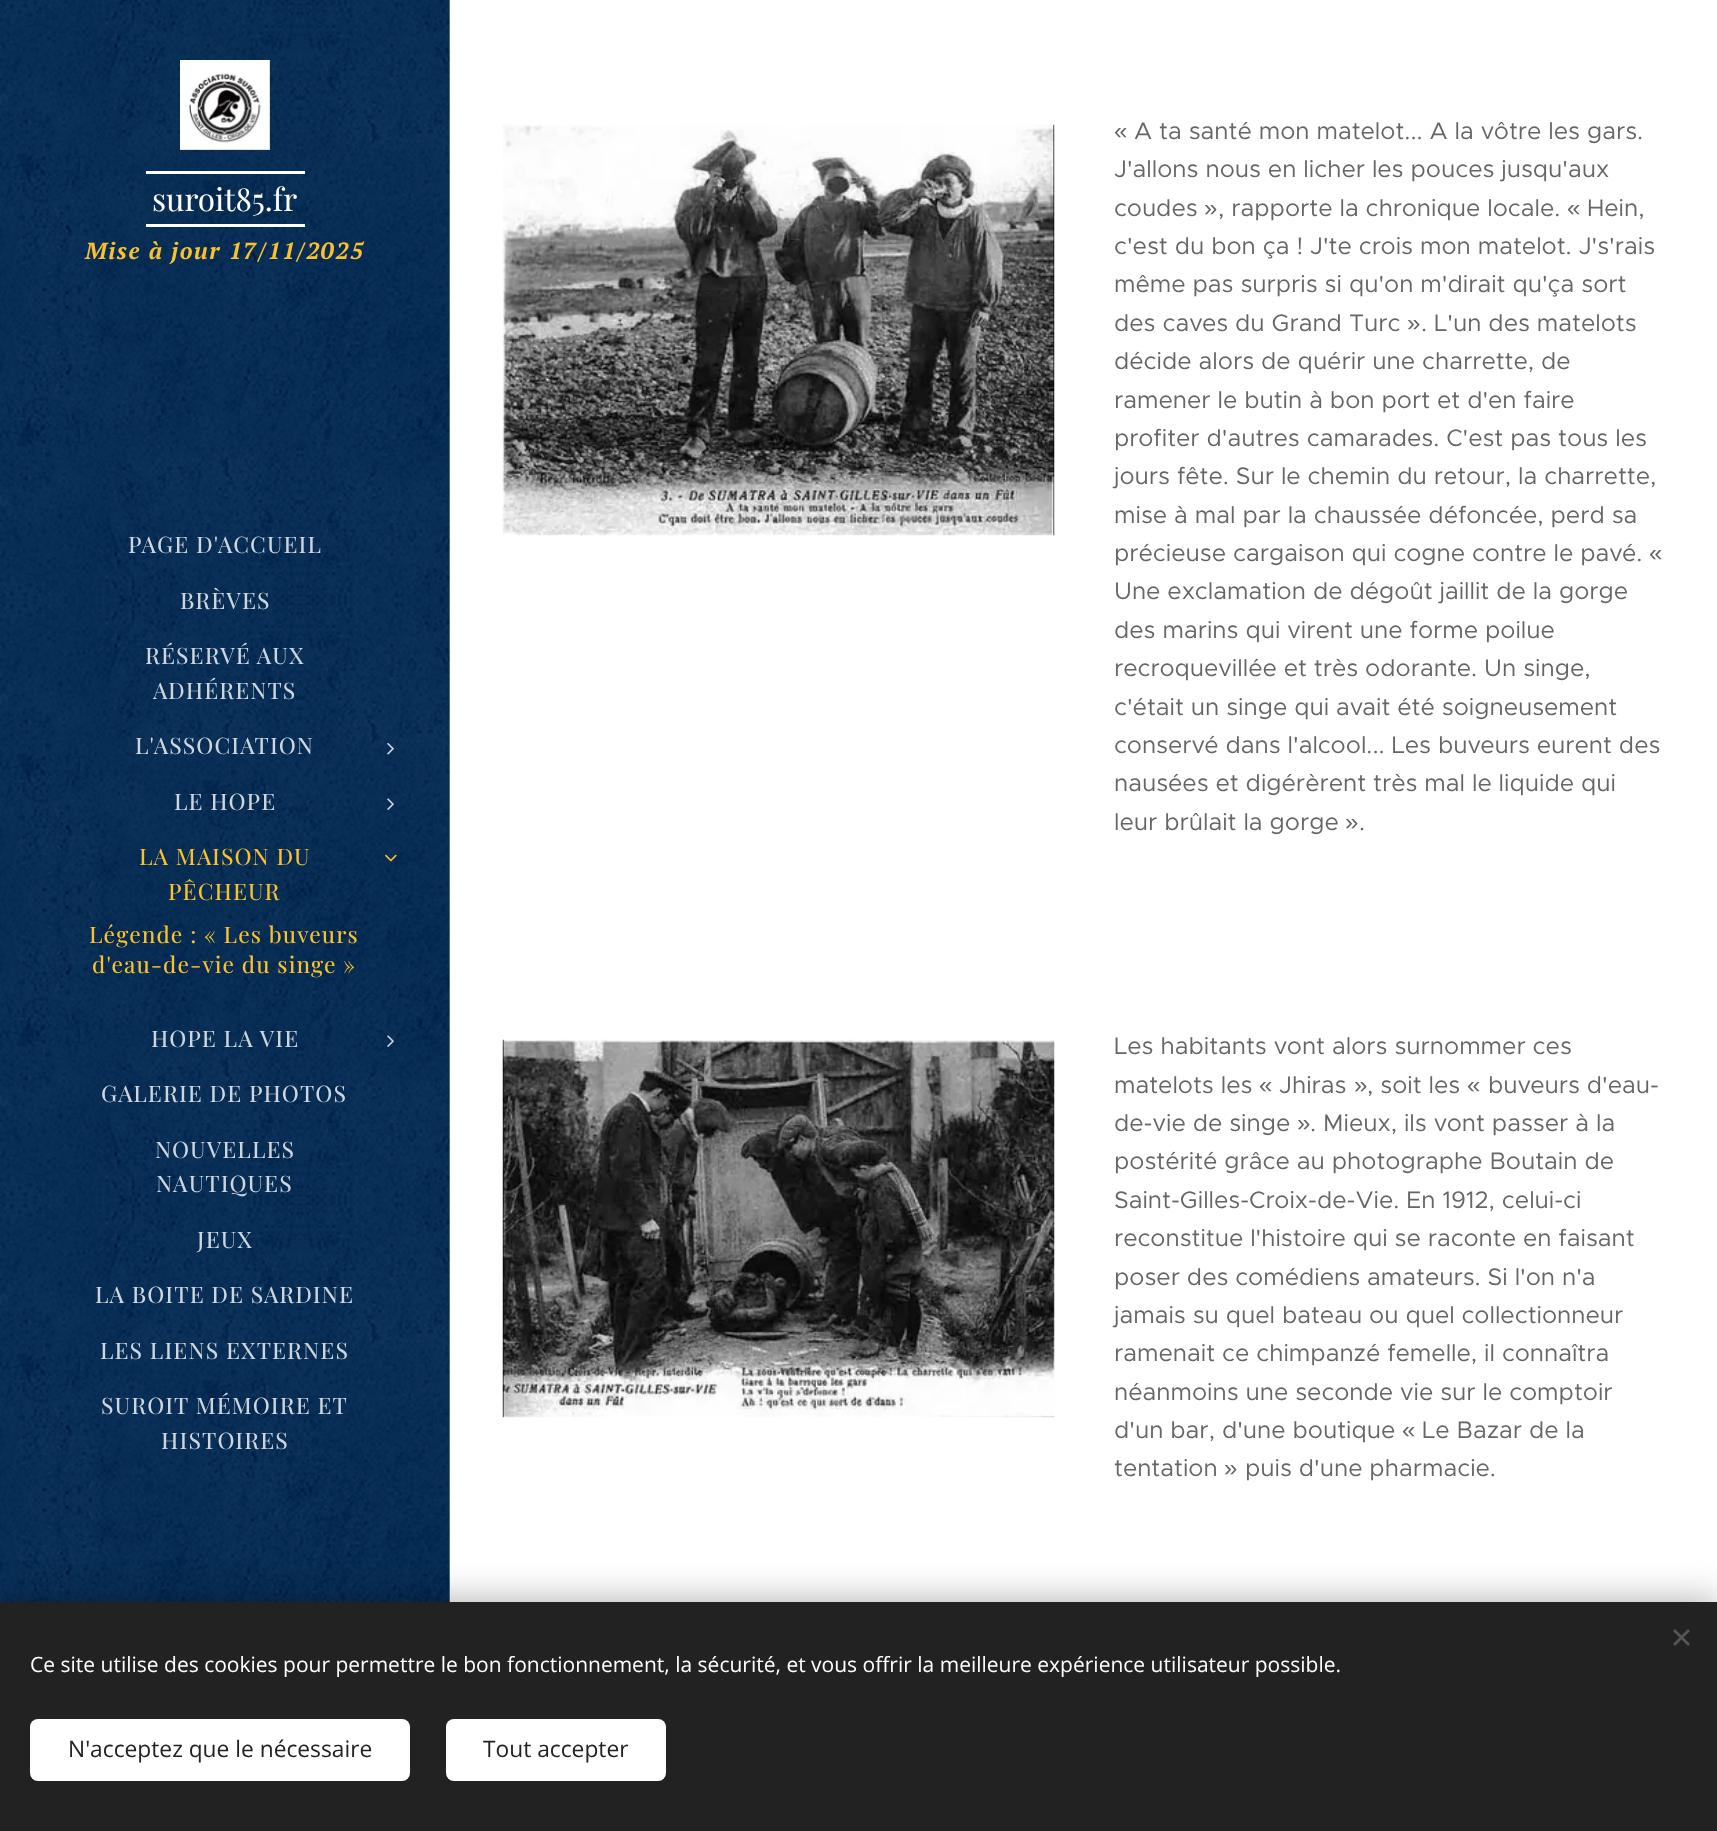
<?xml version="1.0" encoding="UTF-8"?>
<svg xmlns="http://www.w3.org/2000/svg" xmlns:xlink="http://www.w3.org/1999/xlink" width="1717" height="1831">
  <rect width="100%" height="100%" fill="#ffffff" />
  <image x="0" y="0" width="450" height="1602" xlink:href="image1.png" />
  <image x="180" y="60" width="90" height="90" xlink:href="image2.png" />
  <rect x="146" y="171" width="159" height="3" fill="#ffffff" />
  <rect x="146" y="224" width="159" height="3" fill="#ffffff" />
  <image x="387" y="742" width="7" height="13" xlink:href="image3.png" />
  <image x="387" y="798" width="7" height="12" xlink:href="image4.png" />
  <image x="385" y="854" width="12" height="8" xlink:href="image5.png" />
  <image x="387" y="1035" width="7" height="12" xlink:href="image6.png" />
  <rect x="449" width="1" height="1602" fill="#ffffff" fill-opacity="0.3" />
  <image x="502" y="124" width="553" height="412" xlink:href="image7.png" />
  <image x="502" y="1039" width="553" height="379" xlink:href="image8.png" />
  <rect y="1602" width="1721" height="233" fill="#000000" fill-opacity="0.33" filter="blur(19px)" />
  <rect y="1602" width="1717" height="229" fill="#222222" />
  <path d="M 1673 1644 l 15 -15 l 2 2 l -15 15 z" fill="#555555" />
  <path d="M 1675 1629 l 15 15 l -2 2 l -15 -15 z" fill="#555555" />
  <rect x="30" y="1719" width="380" height="62" rx="8" fill="#ffffff" />
  <rect x="446" y="1719" width="220" height="62" rx="8" fill="#ffffff" />
  <text x="152" y="211" style="font-family: Playfair Display; font-size: 31.5px; fill: #ffffff">suroit85.fr</text>
  <text x="85" y="259" style="font-family: PT Serif; font-size: 23.4px; font-weight: bold; font-style: italic; letter-spacing: 1.5px; fill: #fbc02d">Mise à jour 17/11/2025</text>
  <text x="128" y="553" style="font-family: 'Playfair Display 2'; font-size: 22.75px; letter-spacing: 1.1px; fill: #ced5dd">PAGE D'ACCUEIL</text>
  <text x="180" y="609" style="font-family: 'Playfair Display 2'; font-size: 22.75px; letter-spacing: 1.1px; fill: #ced5dd">BRÈVES</text>
  <text x="145" y="664" style="font-family: 'Playfair Display 2'; font-size: 22.75px; letter-spacing: 1.1px; fill: #ced5dd">RÉSERVÉ AUX</text>
  <text x="153" y="699" style="font-family: 'Playfair Display 2'; font-size: 22.75px; letter-spacing: 1.1px; fill: #ced5dd">ADHÉRENTS</text>
  <text x="135" y="754" style="font-family: 'Playfair Display 2'; font-size: 22.75px; letter-spacing: 1.1px; fill: #ced5dd">L'ASSOCIATION</text>
  <text x="174" y="810" style="font-family: 'Playfair Display 2'; font-size: 22.75px; letter-spacing: 1.1px; fill: #ced5dd">LE HOPE</text>
  <text x="139" y="865" style="font-family: 'Playfair Display 2'; font-size: 22.75px; letter-spacing: 1.1px; fill: #fbc02d">LA MAISON DU</text>
  <text x="168" y="900" style="font-family: 'Playfair Display 2'; font-size: 22.75px; letter-spacing: 1.1px; fill: #fbc02d">PÊCHEUR</text>
  <text x="89" y="943" style="font-family: 'Playfair Display 2'; font-size: 22.75px; letter-spacing: 1.1px; fill: #fbc02d">Légende : « Les buveurs</text>
  <text x="92" y="973" style="font-family: 'Playfair Display 2'; font-size: 22.75px; letter-spacing: 1.1px; fill: #fbc02d">d'eau-de-vie du singe »</text>
  <text x="151" y="1047" style="font-family: 'Playfair Display 2'; font-size: 22.75px; letter-spacing: 1.1px; fill: #ced5dd">HOPE LA VIE</text>
  <text x="101" y="1102" style="font-family: 'Playfair Display 2'; font-size: 22.75px; letter-spacing: 1.1px; fill: #ced5dd">GALERIE DE PHOTOS</text>
  <text x="155" y="1158" style="font-family: 'Playfair Display 2'; font-size: 22.75px; letter-spacing: 1.1px; fill: #ced5dd">NOUVELLES</text>
  <text x="156" y="1192" style="font-family: 'Playfair Display 2'; font-size: 22.75px; letter-spacing: 1.1px; fill: #ced5dd">NAUTIQUES</text>
  <text x="197" y="1248" style="font-family: 'Playfair Display 2'; font-size: 22.75px; letter-spacing: 1.1px; fill: #ced5dd">JEUX</text>
  <text x="95" y="1303" style="font-family: 'Playfair Display 2'; font-size: 22.75px; letter-spacing: 1.1px; fill: #ced5dd">LA BOITE DE SARDINE</text>
  <text x="100" y="1359" style="font-family: 'Playfair Display 2'; font-size: 22.75px; letter-spacing: 1.1px; fill: #ced5dd">LES LIENS EXTERNES</text>
  <text x="101" y="1414" style="font-family: 'Playfair Display 2'; font-size: 22.75px; letter-spacing: 1.1px; fill: #ced5dd">SUROIT MÉMOIRE ET</text>
  <text x="161" y="1449" style="font-family: 'Playfair Display 2'; font-size: 22.75px; letter-spacing: 1.1px; fill: #ced5dd">HISTOIRES</text>
  <text x="1114" y="139" style="font-family: Liberation Sans; font-size: 24px; fill: #666666">«</text>
  <text x="1134" y="139" style="font-family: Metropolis; font-size: 24px; fill: #666666">A ta santé mon matelot... A la vôtre les gars.</text>
  <text x="1114" y="177" style="font-family: Metropolis; font-size: 24px; fill: #666666">J'allons nous en licher les pouces jusqu'aux</text>
  <text x="1114" y="216" style="font-family: Metropolis; font-size: 24px; fill: #666666">coudes</text>
  <text x="1204" y="216" style="font-family: Liberation Sans; font-size: 24px; fill: #666666">»</text>
  <text x="1218" y="216" style="font-family: Metropolis; font-size: 24px; fill: #666666">, rapporte la chronique locale.</text>
  <text x="1567" y="216" style="font-family: Liberation Sans; font-size: 24px; fill: #666666">«</text>
  <text x="1587" y="216" style="font-family: Metropolis; font-size: 24px; fill: #666666">Hein,</text>
  <text x="1114" y="254" style="font-family: Metropolis; font-size: 24px; fill: #666666">c'est du bon ça ! J'te crois mon matelot. J's'rais</text>
  <text x="1114" y="292" style="font-family: Metropolis; font-size: 24px; fill: #666666">même pas surpris si qu'on m'dirait qu'ça sort</text>
  <text x="1114" y="331" style="font-family: Metropolis; font-size: 24px; fill: #666666">des caves du Grand Turc</text>
  <text x="1407" y="331" style="font-family: Liberation Sans; font-size: 24px; fill: #666666">»</text>
  <text x="1421" y="331" style="font-family: Metropolis; font-size: 24px; fill: #666666">. L'un des matelots</text>
  <text x="1114" y="369" style="font-family: Metropolis; font-size: 24px; fill: #666666">décide alors de quérir une charrette, de</text>
  <text x="1114" y="408" style="font-family: Metropolis; font-size: 24px; fill: #666666">ramener le butin à bon port et d'en faire</text>
  <text x="1114" y="446" style="font-family: Metropolis; font-size: 24px; fill: #666666">profiter d'autres camarades. C'est pas tous les</text>
  <text x="1114" y="484" style="font-family: Metropolis; font-size: 24px; fill: #666666">jours fête. Sur le chemin du retour, la charrette,</text>
  <text x="1114" y="523" style="font-family: Metropolis; font-size: 24px; fill: #666666">mise à mal par la chaussée défoncée, perd sa</text>
  <text x="1114" y="561" style="font-family: Metropolis; font-size: 24px; fill: #666666">précieuse cargaison qui cogne contre le pavé.</text>
  <text x="1649" y="561" style="font-family: Liberation Sans; font-size: 24px; fill: #666666">«</text>
  <text x="1114" y="599" style="font-family: Metropolis; font-size: 24px; fill: #666666">Une exclamation de dégoût jaillit de la gorge</text>
  <text x="1114" y="638" style="font-family: Metropolis; font-size: 24px; fill: #666666">des marins qui virent une forme poilue</text>
  <text x="1114" y="676" style="font-family: Metropolis; font-size: 24px; fill: #666666">recroquevillée et très odorante. Un singe,</text>
  <text x="1114" y="715" style="font-family: Metropolis; font-size: 24px; fill: #666666">c'était un singe qui avait été soigneusement</text>
  <text x="1114" y="753" style="font-family: Metropolis; font-size: 24px; fill: #666666">conservé dans l'alcool... Les buveurs eurent des</text>
  <text x="1114" y="791" style="font-family: Metropolis; font-size: 24px; fill: #666666">nausées et digérèrent très mal le liquide qui</text>
  <text x="1114" y="830" style="font-family: Metropolis; font-size: 24px; fill: #666666">leur brûlait la gorge</text>
  <text x="1345" y="830" style="font-family: Liberation Sans; font-size: 24px; fill: #666666">»</text>
  <text x="1359" y="830" style="font-family: Metropolis; font-size: 24px; fill: #666666">.</text>
  <text x="1114" y="1054" style="font-family: Metropolis; font-size: 24px; fill: #666666">Les habitants vont alors surnommer ces</text>
  <text x="1114" y="1093" style="font-family: Metropolis; font-size: 24px; fill: #666666">matelots les</text>
  <text x="1259" y="1093" style="font-family: Liberation Sans; font-size: 24px; fill: #666666">«</text>
  <text x="1279" y="1093" style="font-family: Metropolis; font-size: 24px; fill: #666666">Jhiras</text>
  <text x="1354" y="1093" style="font-family: Liberation Sans; font-size: 24px; fill: #666666">»</text>
  <text x="1367" y="1093" style="font-family: Metropolis; font-size: 24px; fill: #666666">, soit les</text>
  <text x="1467" y="1093" style="font-family: Liberation Sans; font-size: 24px; fill: #666666">«</text>
  <text x="1488" y="1093" style="font-family: Metropolis; font-size: 24px; fill: #666666">buveurs d'eau-</text>
  <text x="1114" y="1131" style="font-family: Metropolis; font-size: 24px; fill: #666666">de-vie de singe</text>
  <text x="1297" y="1131" style="font-family: Liberation Sans; font-size: 24px; fill: #666666">»</text>
  <text x="1310" y="1131" style="font-family: Metropolis; font-size: 24px; fill: #666666">. Mieux, ils vont passer à la</text>
  <text x="1114" y="1169" style="font-family: Metropolis; font-size: 24px; fill: #666666">postérité grâce au photographe Boutain de</text>
  <text x="1114" y="1208" style="font-family: Metropolis; font-size: 24px; fill: #666666">Saint-Gilles-Croix-de-Vie. En 1912, celui-ci</text>
  <text x="1114" y="1246" style="font-family: Metropolis; font-size: 24px; fill: #666666">reconstitue l'histoire qui se raconte en faisant</text>
  <text x="1114" y="1285" style="font-family: Metropolis; font-size: 24px; fill: #666666">poser des comédiens amateurs. Si l'on n'a</text>
  <text x="1114" y="1323" style="font-family: Metropolis; font-size: 24px; fill: #666666">jamais su quel bateau ou quel collectionneur</text>
  <text x="1114" y="1361" style="font-family: Metropolis; font-size: 24px; fill: #666666">ramenait ce chimpanzé femelle, il connaîtra</text>
  <text x="1114" y="1400" style="font-family: Metropolis; font-size: 24px; fill: #666666">néanmoins une seconde vie sur le comptoir</text>
  <text x="1114" y="1438" style="font-family: Metropolis; font-size: 24px; fill: #666666">d'un bar, d'une boutique</text>
  <text x="1402" y="1438" style="font-family: Liberation Sans; font-size: 24px; fill: #666666">«</text>
  <text x="1422" y="1438" style="font-family: Metropolis; font-size: 24px; fill: #666666">Le Bazar de la</text>
  <text x="1114" y="1476" style="font-family: Metropolis; font-size: 24px; fill: #666666">tentation</text>
  <text x="1224" y="1476" style="font-family: Liberation Sans; font-size: 24px; fill: #666666">»</text>
  <text x="1245" y="1476" style="font-family: Metropolis; font-size: 24px; fill: #666666">puis d'une pharmacie.</text>
  <text x="30" y="1672" style="font-family: Open Sans; font-size: 21px; fill: #ffffff">Ce site utilise des cookies pour permettre le bon fonctionnement, la sécurité, et vous offrir la meilleure expérience utilisateur possible.</text>
  <text x="68" y="1757" style="font-family: Open Sans; font-size: 22.75px; fill: #222222">N'acceptez que le nécessaire</text>
  <text x="483" y="1757" style="font-family: Open Sans; font-size: 22.75px; fill: #222222">Tout accepter</text>
</svg>
